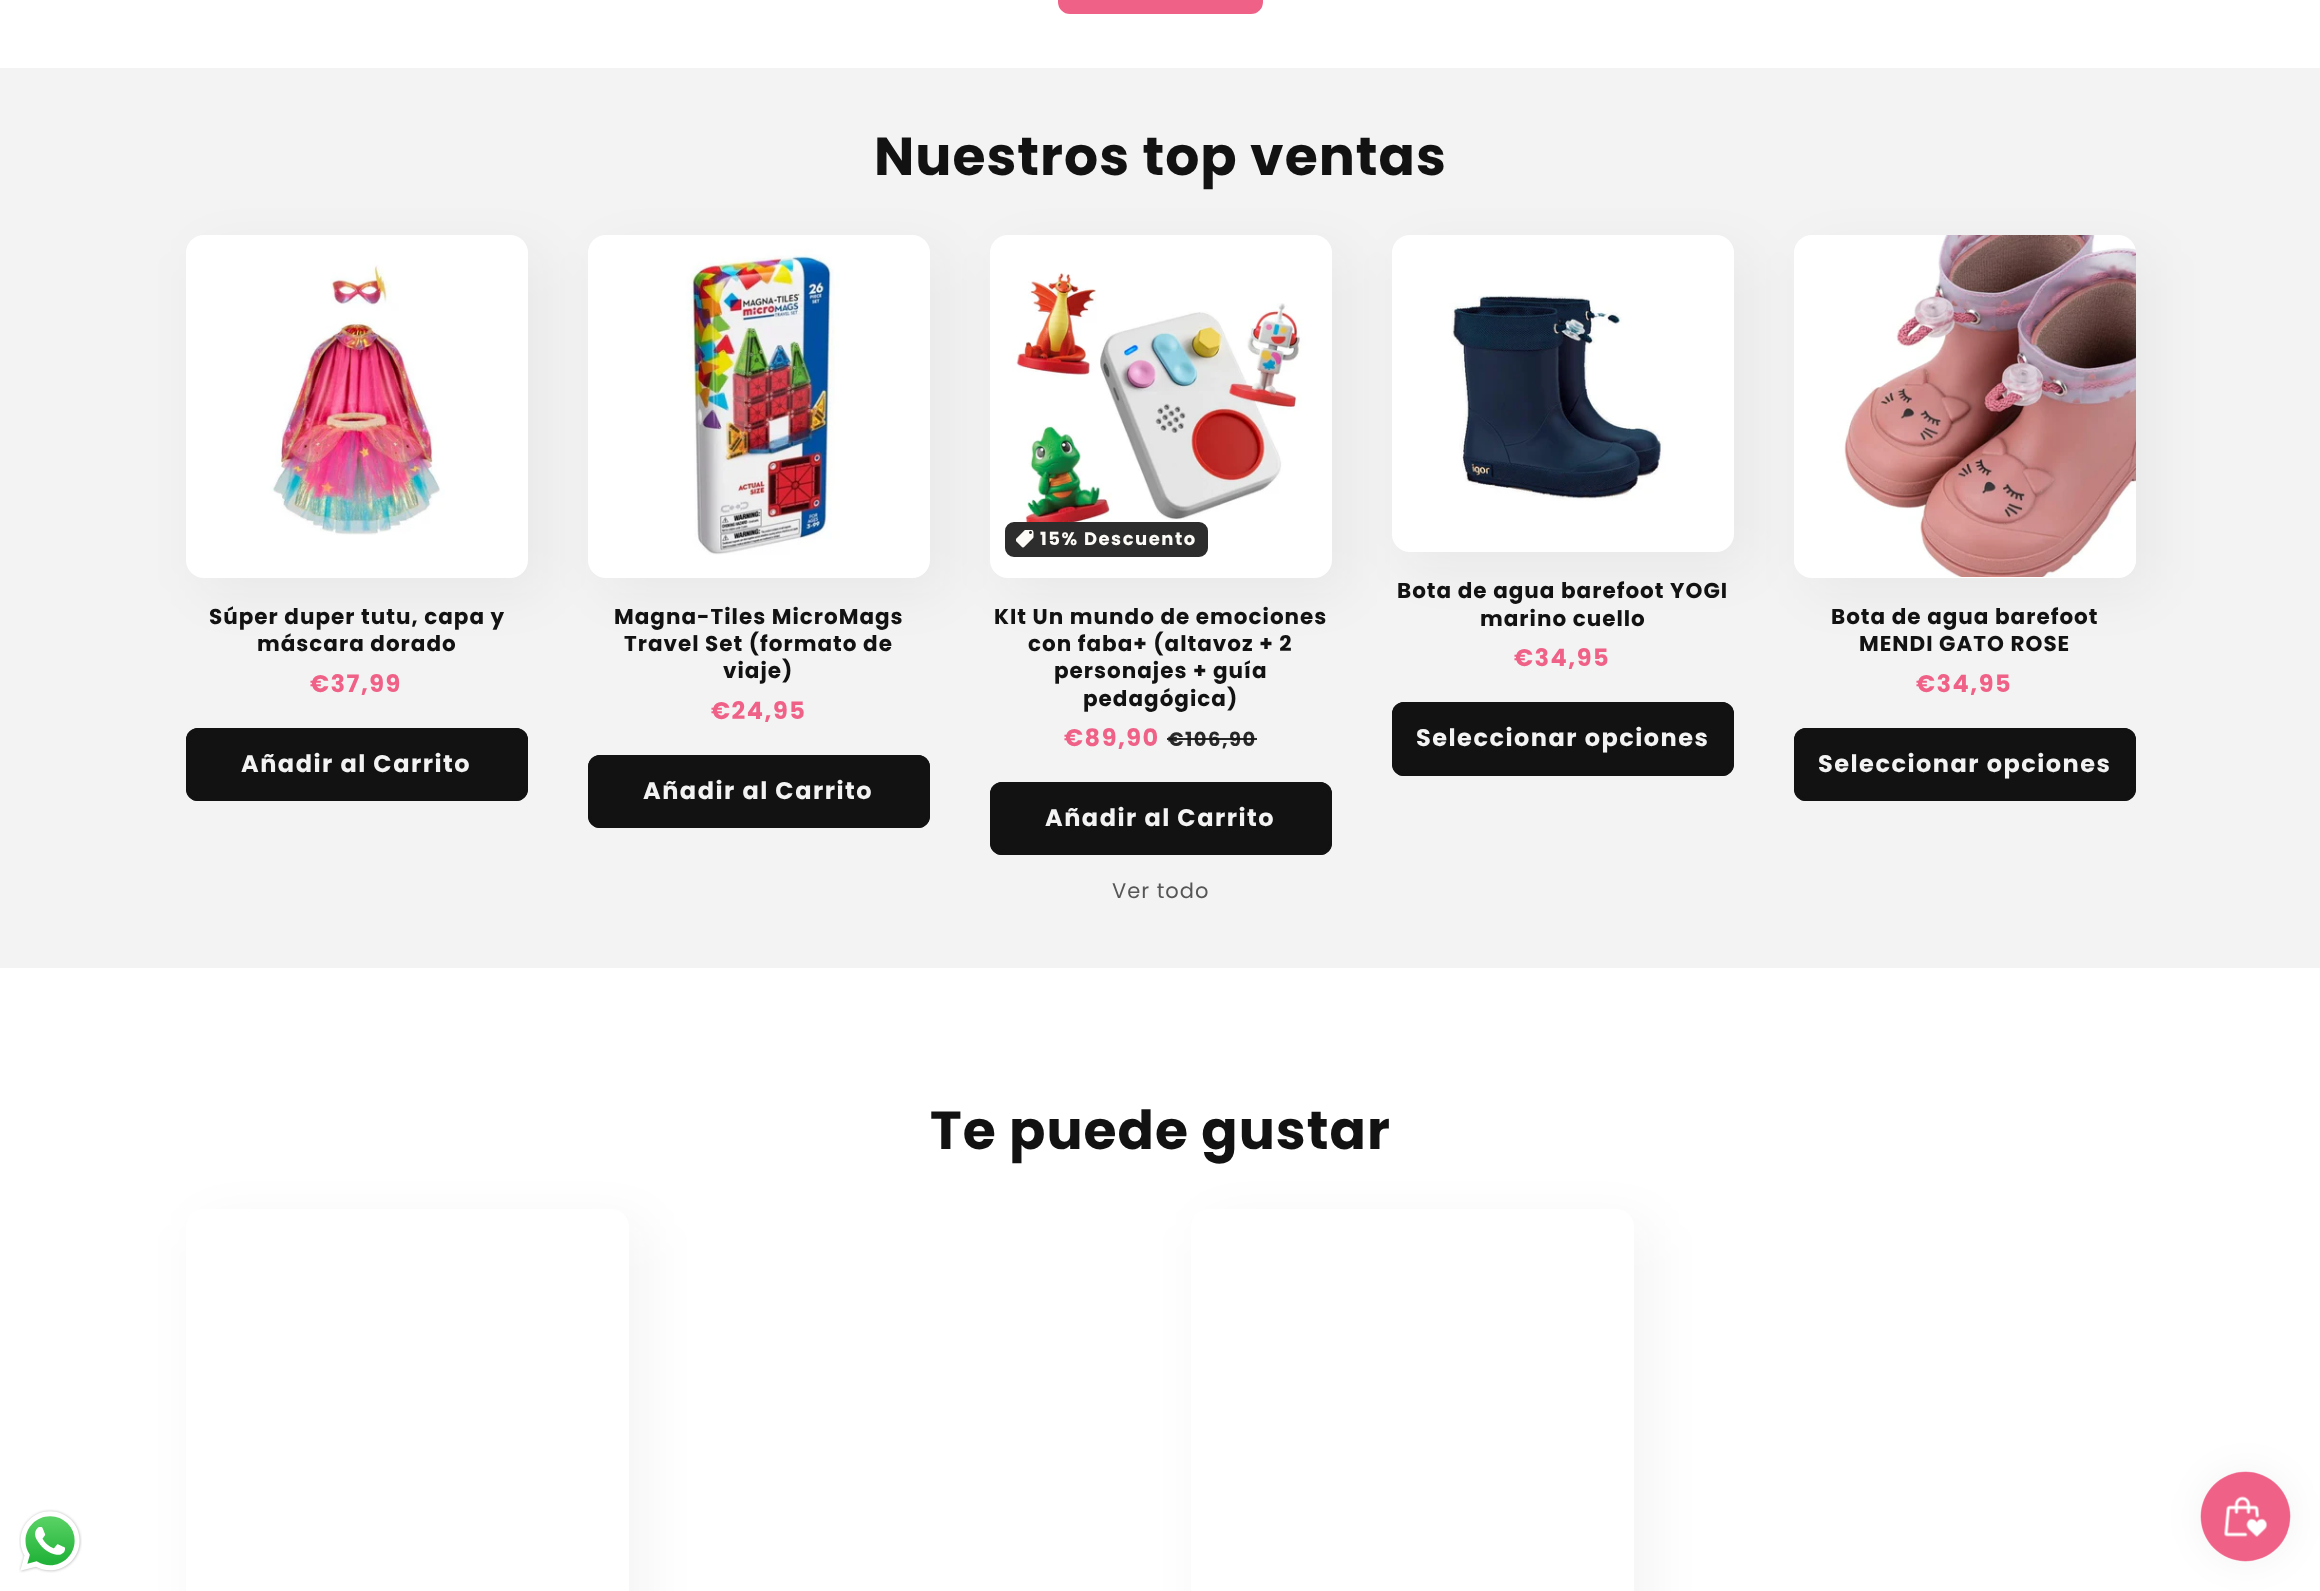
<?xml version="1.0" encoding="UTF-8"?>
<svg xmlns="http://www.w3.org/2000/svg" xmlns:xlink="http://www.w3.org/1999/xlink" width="2320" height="1591">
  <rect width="100%" height="100%" fill="#ffffff" />
  <rect x="1059.5" y="-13.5" width="202" height="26" rx="10.5" fill="#ef6187" stroke="#ef6187" stroke-width="3" />
  <rect y="68" width="2320" height="900" fill="#f3f3f3" />
  <rect x="201" y="251" width="342" height="342" rx="18" fill="#121212" fill-opacity="0.05" filter="blur(26px)" />
  <rect x="603" y="251" width="342" height="342" rx="18" fill="#121212" fill-opacity="0.05" filter="blur(26px)" />
  <rect x="186" y="236" width="342" height="342" rx="18" fill="#ffffff" />
  <image x="186" y="235" width="342" height="300" xlink:href="image1.png" />
  <rect x="186" y="728" width="342" height="73" rx="12" fill="#121212" />
  <rect x="187.5" y="729.5" width="339" height="70" rx="10.5" fill="none" stroke="#121212" stroke-width="3" />
  <rect x="1005" y="251" width="342" height="342" rx="18" fill="#121212" fill-opacity="0.05" filter="blur(26px)" />
  <rect x="588" y="236" width="342" height="342" rx="18" fill="#ffffff" />
  <image x="588" y="235" width="342" height="320" xlink:href="image2.png" />
  <rect x="588" y="755" width="342" height="73" rx="12" fill="#121212" />
  <rect x="589.5" y="756.5" width="339" height="70" rx="10.5" fill="none" stroke="#121212" stroke-width="3" />
  <rect x="1407" y="251" width="342" height="316" rx="18" fill="#121212" fill-opacity="0.05" filter="blur(26px)" />
  <rect x="990" y="236" width="342" height="342" rx="18" fill="#ffffff" />
  <image x="990" y="235" width="342" height="297" xlink:href="image3.png" />
  <rect x="1006" y="523" width="201" height="33" rx="8" fill="#2d2d2d" stroke="#2d2d2d" stroke-width="2" />
  <image x="1016" y="530" width="18" height="18" xlink:href="image4.png" />
  <rect x="990" y="782" width="342" height="73" rx="12" fill="#121212" />
  <rect x="991.5" y="783.5" width="339" height="70" rx="10.5" fill="none" stroke="#121212" stroke-width="3" />
  <rect x="1809" y="251" width="342" height="342" rx="18" fill="#121212" fill-opacity="0.05" filter="blur(26px)" />
  <rect x="1392" y="236" width="342" height="316" rx="18" fill="#ffffff" />
  <image x="1392" y="235" width="342" height="266" xlink:href="image5.png" />
  <rect x="1392" y="702" width="342" height="74" rx="12" fill="#121212" />
  <rect x="1393.5" y="703.5" width="339" height="71" rx="10.5" fill="none" stroke="#121212" stroke-width="3" />
  <rect x="1794" y="236" width="342" height="342" rx="18" fill="#ffffff" />
  <image x="1794" y="235" width="342" height="342" xlink:href="image6.png" />
  <rect x="1794" y="728" width="342" height="73" rx="12" fill="#121212" />
  <rect x="1795.5" y="729.5" width="339" height="70" rx="10.5" fill="none" stroke="#121212" stroke-width="3" />
  <rect x="201" y="1224" width="443" height="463" rx="18" fill="#121212" fill-opacity="0.05" filter="blur(26px)" />
  <rect x="186" y="1209" width="443" height="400" rx="18" fill="#ffffff" />
  <rect x="1206" y="1224" width="443" height="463" rx="18" fill="#121212" fill-opacity="0.05" filter="blur(26px)" />
  <rect x="1191" y="1209" width="443" height="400" rx="18" fill="#ffffff" />
  <image x="19" y="1509" width="63" height="64" xlink:href="image7.png" />
  <rect x="2201" y="1472" width="90" height="90" rx="45" fill="#000000" fill-opacity="0.05" filter="blur(19px)" />
  <image x="2200" y="1471" width="91" height="91" xlink:href="image8.png" />
  <text x="874" y="175" style="font-family: Poppins; font-size: 53.6px; font-weight: bold; letter-spacing: 1px; fill: #121212">Nuestros top ventas</text>
  <text x="209" y="624" style="font-family: Poppins; font-size: 21.5px; font-weight: bold; letter-spacing: 1px; fill: #121212">Súper duper tutu, capa y</text>
  <text x="257" y="651" style="font-family: Poppins; font-size: 21.5px; font-weight: bold; letter-spacing: 1px; fill: #121212">máscara dorado</text>
  <text x="310" y="692" style="font-family: Poppins; font-size: 24px; font-weight: bold; letter-spacing: 1.5px; fill: #ef6187">€37,99</text>
  <text x="241" y="772" style="font-family: Poppins; font-size: 24px; font-weight: bold; letter-spacing: 1.5px; fill: #f3f3f3">Añadir al Carrito</text>
  <text x="614" y="624" style="font-family: Poppins; font-size: 21.5px; font-weight: bold; letter-spacing: 1px; fill: #121212">Magna-Tiles MicroMags</text>
  <text x="624" y="651" style="font-family: Poppins; font-size: 21.5px; font-weight: bold; letter-spacing: 1px; fill: #121212">Travel Set (formato de</text>
  <text x="723" y="678" style="font-family: Poppins; font-size: 21.5px; font-weight: bold; letter-spacing: 1px; fill: #121212">viaje)</text>
  <text x="711" y="719" style="font-family: Poppins; font-size: 24px; font-weight: bold; letter-spacing: 1.5px; fill: #ef6187">€24,95</text>
  <text x="643" y="799" style="font-family: Poppins; font-size: 24px; font-weight: bold; letter-spacing: 1.5px; fill: #f3f3f3">Añadir al Carrito</text>
  <text x="1040" y="545" style="font-family: Poppins; font-size: 18px; font-weight: bold; letter-spacing: 1.5px; fill: #fdfbf7">15% Descuento</text>
  <text x="994" y="624" style="font-family: Poppins; font-size: 21.5px; font-weight: bold; letter-spacing: 1px; fill: #121212">KIt Un mundo de emociones</text>
  <text x="1028" y="651" style="font-family: Poppins; font-size: 21.5px; font-weight: bold; letter-spacing: 1px; fill: #121212">con faba+ (altavoz + 2</text>
  <text x="1054" y="678" style="font-family: Poppins; font-size: 21.5px; font-weight: bold; letter-spacing: 1px; fill: #121212">personajes + guía</text>
  <text x="1083" y="706" style="font-family: Poppins; font-size: 21.5px; font-weight: bold; letter-spacing: 1px; fill: #121212">pedagógica)</text>
  <text x="1064" y="746" style="font-family: Poppins; font-size: 24px; font-weight: bold; letter-spacing: 1.5px; fill: #ef6187">€89,90</text>
  <text x="1168" y="746" style="font-family: Poppins; font-size: 19.5px; font-weight: bold; letter-spacing: 1.5px; fill: #292929">€106,90</text>
  <rect x="1167" y="738" width="90" height="2" fill="#121212" fill-opacity="0.9" />
  <text x="1045" y="826" style="font-family: Poppins; font-size: 24px; font-weight: bold; letter-spacing: 1.5px; fill: #f3f3f3">Añadir al Carrito</text>
  <text x="1397" y="598" style="font-family: Poppins; font-size: 21.5px; font-weight: bold; letter-spacing: 1px; fill: #121212">Bota de agua barefoot YOGI</text>
  <text x="1480" y="626" style="font-family: Poppins; font-size: 21.5px; font-weight: bold; letter-spacing: 1px; fill: #121212">marino cuello</text>
  <text x="1514" y="666" style="font-family: Poppins; font-size: 24px; font-weight: bold; letter-spacing: 1.5px; fill: #ef6187">€34,95</text>
  <text x="1416" y="746" style="font-family: Poppins; font-size: 24px; font-weight: bold; letter-spacing: 1.5px; fill: #f3f3f3">Seleccionar opciones</text>
  <text x="1831" y="624" style="font-family: Poppins; font-size: 21.5px; font-weight: bold; letter-spacing: 1px; fill: #121212">Bota de agua barefoot</text>
  <text x="1859" y="651" style="font-family: Poppins; font-size: 21.5px; font-weight: bold; letter-spacing: 1px; fill: #121212">MENDI GATO ROSE</text>
  <text x="1916" y="692" style="font-family: Poppins; font-size: 24px; font-weight: bold; letter-spacing: 1.5px; fill: #ef6187">€34,95</text>
  <text x="1818" y="772" style="font-family: Poppins; font-size: 24px; font-weight: bold; letter-spacing: 1.5px; fill: #f3f3f3">Seleccionar opciones</text>
  <text x="1112" y="898" style="font-family: Poppins; font-size: 21px; letter-spacing: 1px; fill: #565656">Ver todo</text>
  <text x="930" y="1149" style="font-family: Poppins; font-size: 53.6px; font-weight: bold; letter-spacing: 1px; fill: #121212">Te puede gustar</text>
</svg>
